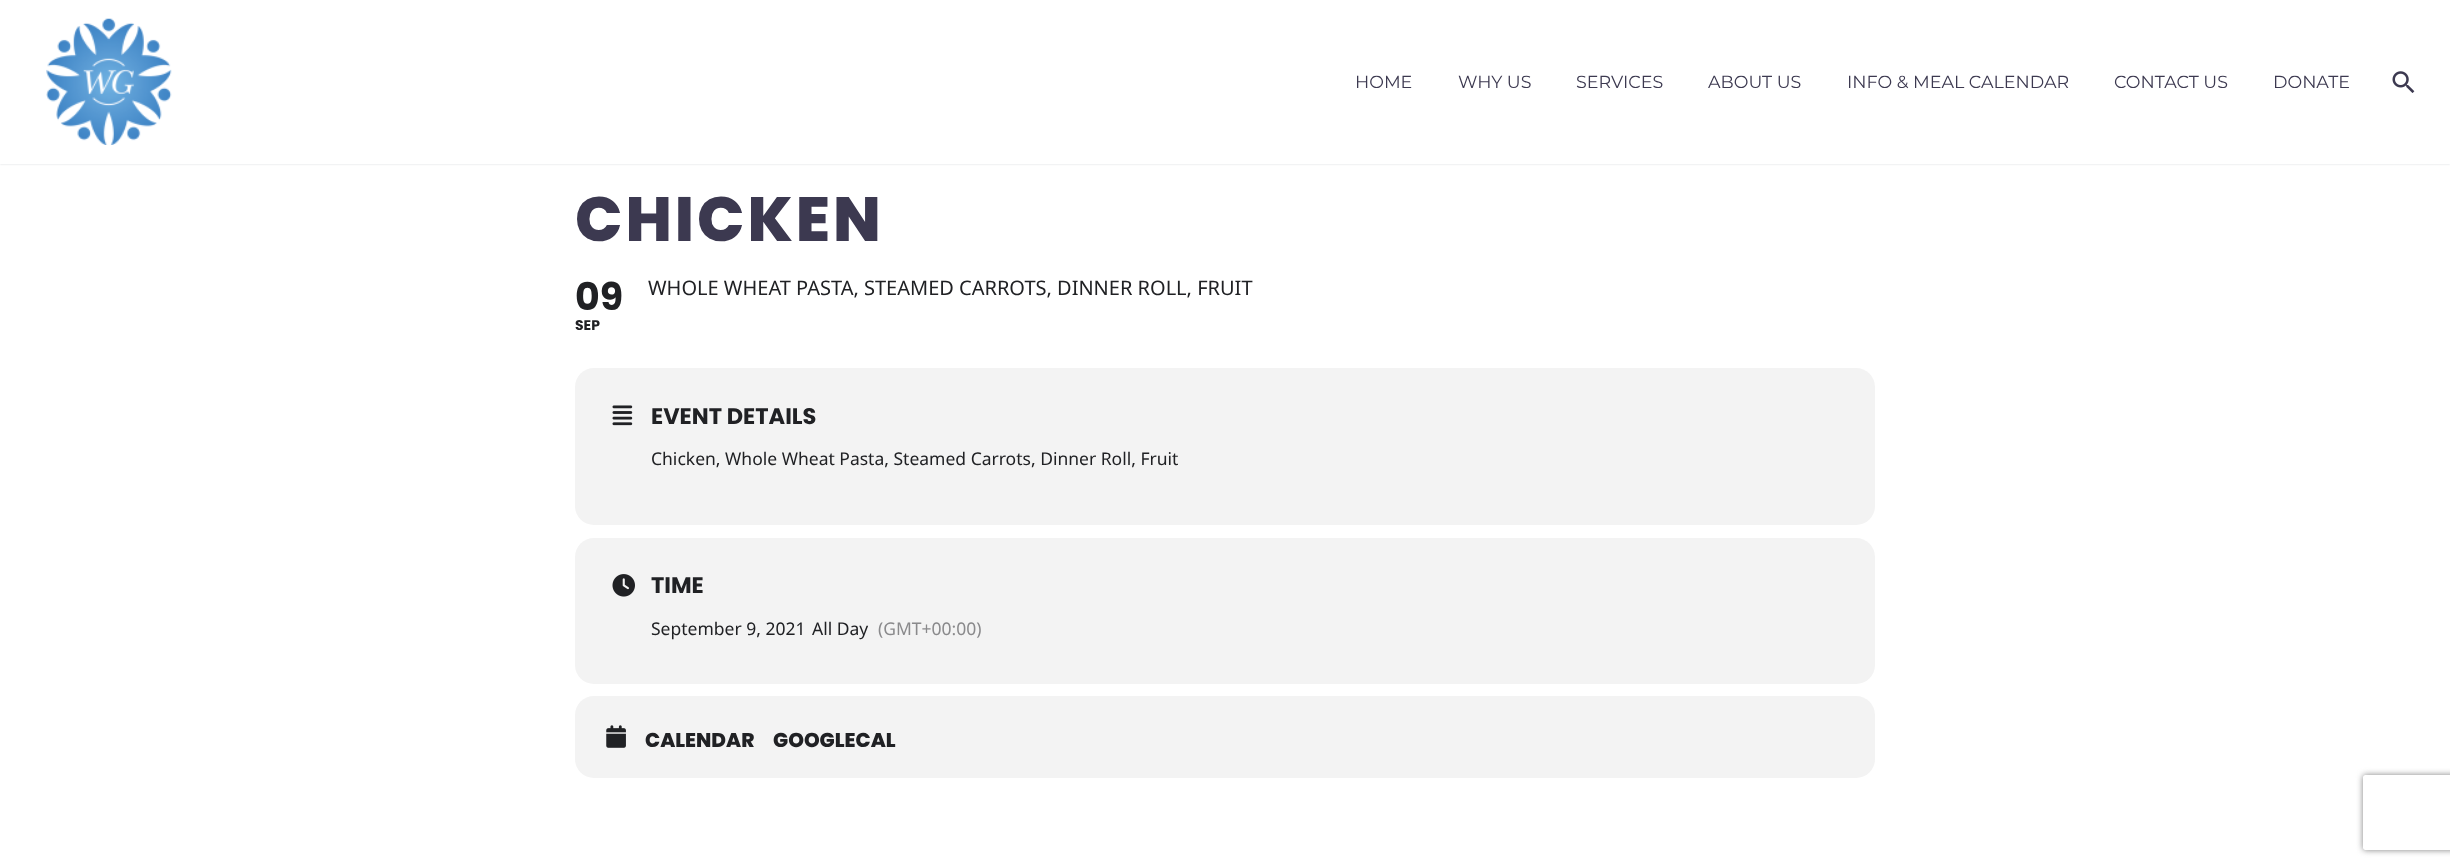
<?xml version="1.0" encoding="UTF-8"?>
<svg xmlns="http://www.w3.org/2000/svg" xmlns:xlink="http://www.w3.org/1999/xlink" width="2450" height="867">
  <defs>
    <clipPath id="clip1"><path d="M 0 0 h 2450 v 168 h -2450 z m 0 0 h 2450 v 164 h -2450 z" clip-rule="evenodd" /></clipPath>
    <clipPath id="clip2"><path d="M 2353 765 h 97 v 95 h -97 z m 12.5 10 h 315 c 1.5 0 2.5 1 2.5 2.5 v 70 c 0 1.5 -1 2.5 -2.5 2.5 h -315 c -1.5 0 -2.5 -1 -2.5 -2.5 v -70 c 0 -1.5 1 -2.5 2.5 -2.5 z" clip-rule="evenodd" /></clipPath>
  </defs>
  <rect width="100%" height="100%" fill="#ffffff" />
  <g clip-path="url(#clip1)">
    <rect width="2450" height="164" fill="#384554" fill-opacity="0.2" filter="blur(1px)" />
  </g>
  <image x="46" y="18" width="126" height="127" xlink:href="image1.png" />
  <image x="2392" y="71" width="23" height="22" xlink:href="image2.png" />
  <rect x="575" y="368" width="1300" height="157" rx="19" fill="#f3f3f3" />
  <image x="612" y="405" width="21" height="21" xlink:href="image3.png" />
  <rect x="575" y="538" width="1300" height="146" rx="19" fill="#f3f3f3" />
  <image x="612" y="574" width="23" height="23" xlink:href="image4.png" />
  <rect x="575" y="696" width="1300" height="82" rx="19" fill="#f3f3f3" />
  <image x="606" y="725" width="20" height="23" xlink:href="image5.png" />
  <g clip-path="url(#clip2)">
    <rect x="2363" y="775" width="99" height="75" rx="2.5" fill="#808080" filter="blur(3px)" />
  </g>
  <text x="1355" y="88" style="font-family: Montserrat; font-size: 17.5px; fill: #3c3950">HOME</text>
  <text x="1458" y="88" style="font-family: Montserrat; font-size: 17.5px; fill: #3c3950">WHY US</text>
  <text x="1576" y="88" style="font-family: Montserrat; font-size: 17.5px; fill: #3c3950">SERVICES</text>
  <text x="1708" y="88" style="font-family: Montserrat; font-size: 17.5px; fill: #3c3950">ABOUT US</text>
  <text x="1847" y="88" style="font-family: Montserrat; font-size: 17.5px; fill: #3c3950">INFO &amp; MEAL CALENDAR</text>
  <text x="2114" y="88" style="font-family: Montserrat; font-size: 17.5px; fill: #3c3950">CONTACT US</text>
  <text x="2273" y="88" style="font-family: Montserrat; font-size: 17.5px; fill: #3c3950">DONATE</text>
  <text x="575" y="241" style="font-family: Poppins; font-size: 62.5px; font-weight: 800; letter-spacing: 3px; fill: #3c3950">CHICKEN</text>
  <text x="575" y="310" style="font-family: Poppins; font-size: 38px; font-weight: bold; fill: #202124">09</text>
  <text x="575" y="330" style="font-family: Poppins; font-size: 14px; font-weight: bold; fill: #202124">SEP</text>
  <text x="648" y="295" style="font-family: Noto Sans; font-size: 20px; fill: #202124">WHOLE WHEAT PASTA, STEAMED CARROTS, DINNER ROLL, FRUIT</text>
  <text x="651" y="424" style="font-family: Poppins; font-size: 22.5px; font-weight: bold; fill: #202124">EVENT DETAILS</text>
  <text x="651" y="465" style="font-family: Noto Sans; font-size: 17.5px; fill: #202124">Chicken, Whole Wheat Pasta, Steamed Carrots, Dinner Roll, Fruit</text>
  <text x="651" y="593" style="font-family: Poppins; font-size: 22.5px; font-weight: bold; fill: #202124">TIME</text>
  <text x="651" y="635" style="font-family: Noto Sans; font-size: 17.5px; fill: #202124">September 9, 2021</text>
  <text x="812" y="635" style="font-family: Noto Sans; font-size: 17.5px; fill: #202124">All Day</text>
  <text x="878" y="635" style="font-family: Noto Sans; font-size: 17.5px; fill: #8a8a8c">(GMT+00:00)</text>
  <text x="645" y="747" style="font-family: Poppins; font-size: 20px; font-weight: 800; fill: #202124">CALENDAR</text>
  <text x="773" y="747" style="font-family: Poppins; font-size: 20px; font-weight: 800; fill: #202124">GOOGLECAL</text>
</svg>
